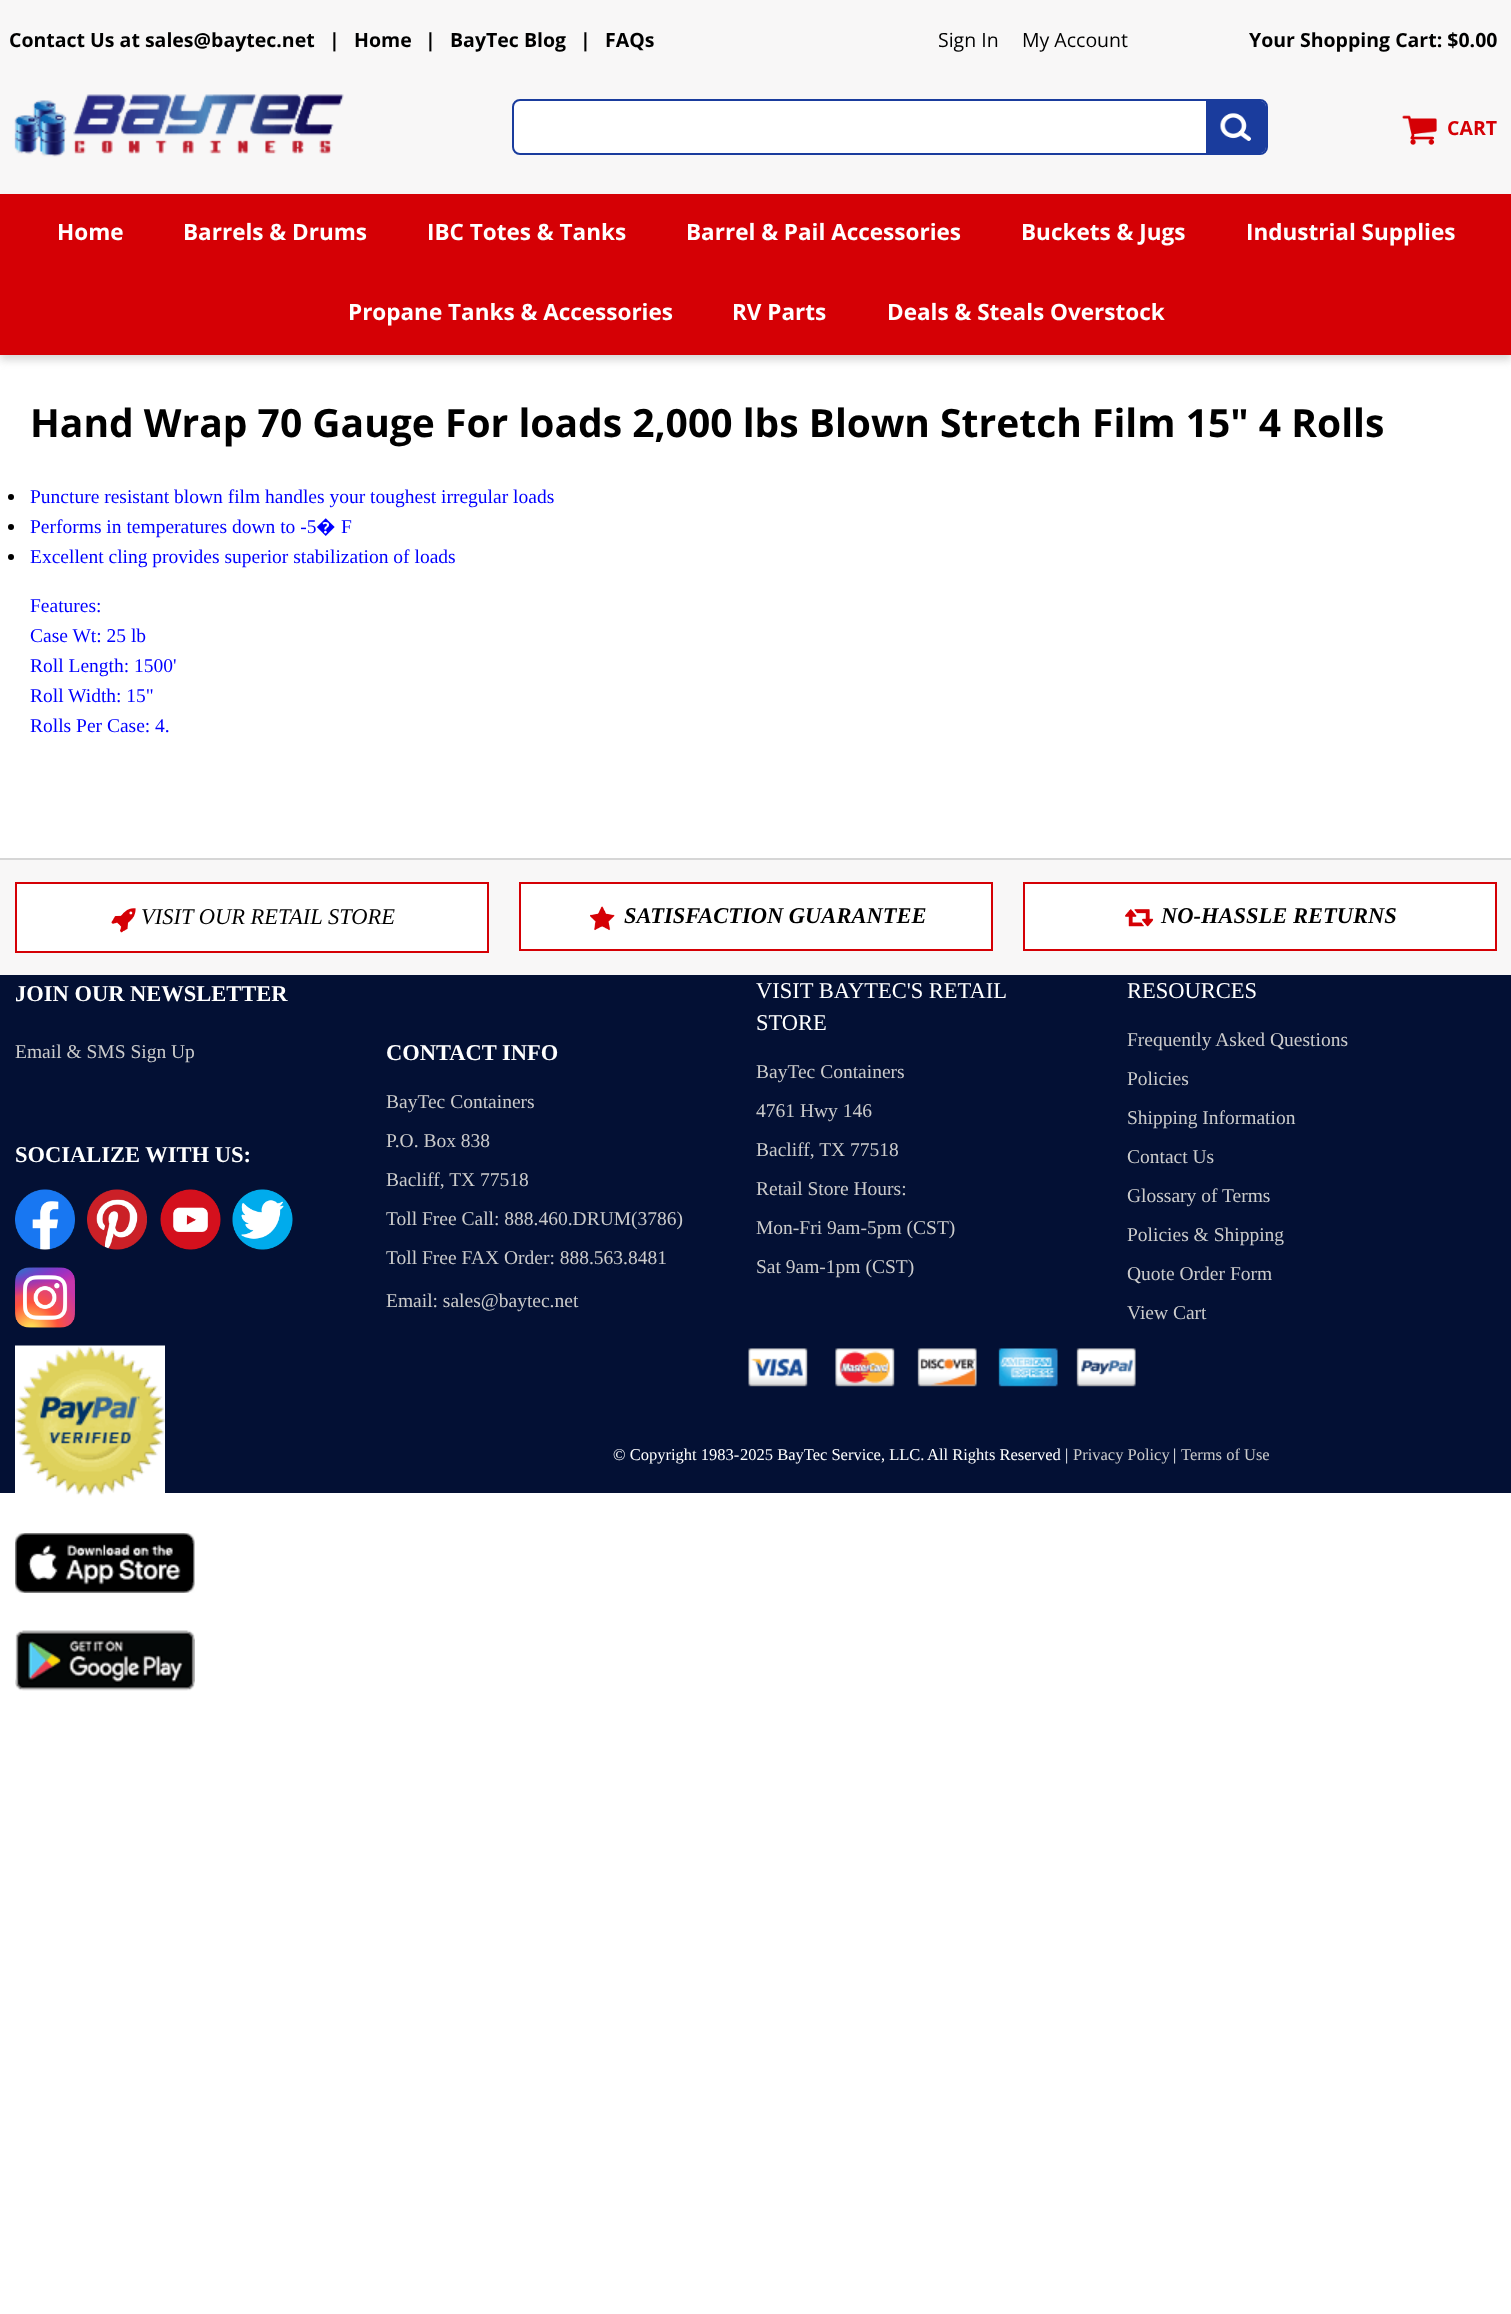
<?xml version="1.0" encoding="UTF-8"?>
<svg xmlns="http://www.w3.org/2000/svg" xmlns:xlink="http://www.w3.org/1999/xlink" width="1511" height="2314">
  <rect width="100%" height="100%" fill="#ffffff" />
  <rect width="1511" height="194" fill="#f8f7f7" />
  <image x="14" y="94" width="330" height="63" xlink:href="image1.png" />
  <rect x="513" y="100" width="754" height="54" rx="7" fill="#ffffff" stroke="#1a3c9d" stroke-width="2" />
  <path d="M 1206 101 h 54 c 3.5 0 6 2.5 6 6 v 40 c 0 3.5 -2.5 6 -6 6 h -54 z" fill="#1a3c9d" />
  <image x="1220" y="113" width="31" height="28" xlink:href="image2.png" />
  <image x="1402" y="115" width="35" height="30" xlink:href="image3.png" />
  <rect y="200" width="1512" height="160" fill="#aaaaaa" fill-opacity="0.48" filter="blur(4px)" />
  <rect y="194" width="1511" height="161" fill="#d50005" />
  <circle cx="11" cy="497" r="3" fill="#000000" />
  <circle cx="11" cy="527" r="3" fill="#000000" />
  <circle cx="11" cy="557" r="3" fill="#000000" />
  <rect y="975" width="1511" height="518" fill="#031034" />
  <rect y="860" width="1511" height="115" fill="#f8f7f7" />
  <rect y="858" width="1511" height="2" fill="#d6d6d6" />
  <rect x="16" y="883" width="472" height="69" fill="#ffffff" stroke="#d50005" stroke-width="2" />
  <image x="111" y="908" width="25" height="25" xlink:href="image4.png" />
  <rect x="520" y="883" width="472" height="67" fill="#ffffff" stroke="#d50005" stroke-width="2" />
  <image x="590" y="906" width="25" height="25" xlink:href="image5.png" />
  <rect x="1024" y="883" width="472" height="67" fill="#ffffff" stroke="#d50005" stroke-width="2" />
  <image x="1125" y="909" width="29" height="18" xlink:href="image6.png" />
  <image x="15" y="1189" width="60" height="61" xlink:href="image7.png" />
  <image x="87" y="1189" width="60" height="61" xlink:href="image8.png" />
  <image x="160" y="1189" width="61" height="61" xlink:href="image9.png" />
  <image x="232" y="1189" width="61" height="61" xlink:href="image10.png" />
  <image x="15" y="1267" width="60" height="61" xlink:href="image11.png" />
  <image x="15" y="1345" width="150" height="151" xlink:href="image12.png" />
  <image x="15" y="1533" width="180" height="60" xlink:href="image13.png" />
  <image x="15" y="1630" width="180" height="61" xlink:href="image14.png" />
  <image x="748" y="1348" width="388" height="39" xlink:href="image15.png" />
  <text x="9" y="47" style="font-family: Open Sans; font-size: 19.5px; font-weight: bold; fill: #000000">Contact Us at sales@baytec.net</text>
  <text x="329" y="47" style="font-family: Open Sans; font-size: 19.5px; font-weight: bold; fill: #000000">|</text>
  <text x="354" y="47" style="font-family: Open Sans; font-size: 19.5px; font-weight: bold; fill: #000000">Home</text>
  <text x="425" y="47" style="font-family: Open Sans; font-size: 19.5px; font-weight: bold; fill: #000000">|</text>
  <text x="450" y="47" style="font-family: Open Sans; font-size: 19.5px; font-weight: bold; fill: #000000">BayTec Blog</text>
  <text x="580" y="47" style="font-family: Open Sans; font-size: 19.5px; font-weight: bold; fill: #000000">|</text>
  <text x="605" y="47" style="font-family: Open Sans; font-size: 19.5px; font-weight: bold; fill: #000000">FAQs</text>
  <text x="938" y="47" style="font-family: Open Sans; font-size: 19.5px; fill: #000000">Sign In</text>
  <text x="1022" y="47" style="font-family: Open Sans; font-size: 19.5px; fill: #000000">My Account</text>
  <text x="1249" y="47" style="font-family: Open Sans; font-size: 19.5px; font-weight: bold; fill: #000000">Your Shopping Cart: $0.00</text>
  <text x="1447" y="135" style="font-family: Open Sans; font-size: 19.5px; font-weight: bold; fill: #d50005">CART</text>
  <text x="57" y="240" style="font-family: Open Sans; font-size: 22.5px; font-weight: bold; fill: #ffffff">Home</text>
  <text x="183" y="240" style="font-family: Open Sans; font-size: 22.5px; font-weight: bold; fill: #ffffff">Barrels &amp; Drums</text>
  <text x="427" y="240" style="font-family: Open Sans; font-size: 22.5px; font-weight: bold; fill: #ffffff">IBC Totes &amp; Tanks</text>
  <text x="686" y="240" style="font-family: Open Sans; font-size: 22.5px; font-weight: bold; fill: #ffffff">Barrel &amp; Pail Accessories</text>
  <text x="1021" y="240" style="font-family: Open Sans; font-size: 22.5px; font-weight: bold; fill: #ffffff">Buckets &amp; Jugs</text>
  <text x="1246" y="240" style="font-family: Open Sans; font-size: 22.5px; font-weight: bold; fill: #ffffff">Industrial Supplies</text>
  <text x="348" y="320" style="font-family: Open Sans; font-size: 22.5px; font-weight: bold; fill: #ffffff">Propane Tanks &amp; Accessories</text>
  <text x="732" y="320" style="font-family: Open Sans; font-size: 22.5px; font-weight: bold; fill: #ffffff">RV Parts</text>
  <text x="887" y="320" style="font-family: Open Sans; font-size: 22.5px; font-weight: bold; fill: #ffffff">Deals &amp; Steals Overstock</text>
  <text x="30" y="437" style="font-family: Open Sans; font-size: 39px; font-weight: bold; fill: #000000">Hand Wrap 70 Gauge For loads 2,000 lbs Blown Stretch Film 15" 4 Rolls</text>
  <text x="30" y="503" style="font-family: Liberation Serif; font-size: 19.5px; fill: #0000ff">Puncture resistant blown film handles your toughest irregular loads</text>
  <text x="30" y="533" style="font-family: Liberation Serif; font-size: 19.5px; fill: #0000ff">Performs in temperatures down to -5</text>
  <text x="316" y="533" style="font-family: Noto Sans; font-size: 19.5px; fill: #0000ff">�</text>
  <text x="341" y="533" style="font-family: Liberation Serif; font-size: 19.5px; fill: #0000ff">F</text>
  <text x="30" y="563" style="font-family: Liberation Serif; font-size: 19.5px; fill: #0000ff">Excellent cling provides superior stabilization of loads</text>
  <text x="30" y="612" style="font-family: Liberation Serif; font-size: 19.5px; fill: #0000ff">Features:</text>
  <text x="30" y="642" style="font-family: Liberation Serif; font-size: 19.5px; fill: #0000ff">Case Wt: 25 lb</text>
  <text x="30" y="672" style="font-family: Liberation Serif; font-size: 19.5px; fill: #0000ff">Roll Length: 1500'</text>
  <text x="30" y="702" style="font-family: Liberation Serif; font-size: 19.5px; fill: #0000ff">Roll Width: 15"</text>
  <text x="30" y="732" style="font-family: Liberation Serif; font-size: 19.5px; fill: #0000ff">Rolls Per Case: 4.</text>
  <text x="141" y="924" style="font-family: Liberation Serif; font-size: 22.5px; font-style: italic; fill: #000000">VISIT OUR RETAIL STORE</text>
  <text x="624" y="923" style="font-family: Liberation Serif; font-size: 22.5px; font-weight: bold; font-style: italic; fill: #000000">SATISFACTION GUARANTEE</text>
  <text x="1161" y="923" style="font-family: Liberation Serif; font-size: 22.5px; font-weight: bold; font-style: italic; fill: #000000">NO-HASSLE RETURNS</text>
  <text x="15" y="1001" style="font-family: Liberation Serif; font-size: 22.5px; font-weight: bold; fill: #ffffff">JOIN OUR NEWSLETTER</text>
  <text x="15" y="1058" style="font-family: Liberation Serif; font-size: 19.5px; fill: #cbcbcb">Email &amp; SMS Sign Up</text>
  <text x="15" y="1162" style="font-family: Liberation Serif; font-size: 22.5px; font-weight: bold; fill: #ffffff">SOCIALIZE WITH US:</text>
  <text x="386" y="1060" style="font-family: Liberation Serif; font-size: 22.5px; font-weight: bold; fill: #ffffff">CONTACT INFO</text>
  <text x="386" y="1108" style="font-family: Liberation Serif; font-size: 19.5px; fill: #cbcbcb">BayTec Containers</text>
  <text x="386" y="1147" style="font-family: Liberation Serif; font-size: 19.5px; fill: #cbcbcb">P.O. Box 838</text>
  <text x="386" y="1186" style="font-family: Liberation Serif; font-size: 19.5px; fill: #cbcbcb">Bacliff, TX 77518</text>
  <text x="386" y="1225" style="font-family: Liberation Serif; font-size: 19.5px; fill: #cbcbcb">Toll Free Call: 888.460.DRUM(3786)</text>
  <text x="386" y="1264" style="font-family: Liberation Serif; font-size: 19.5px; fill: #cbcbcb">Toll Free FAX Order: 888.563.8481</text>
  <text x="386" y="1307" style="font-family: Liberation Serif; font-size: 19.5px; fill: #cbcbcb">Email: sales@baytec.net</text>
  <text x="756" y="998" style="font-family: Liberation Serif; font-size: 22.5px; fill: #ffffff">VISIT BAYTEC'S RETAIL</text>
  <text x="756" y="1030" style="font-family: Liberation Serif; font-size: 22.5px; fill: #ffffff">STORE</text>
  <text x="756" y="1078" style="font-family: Liberation Serif; font-size: 19.5px; fill: #cbcbcb">BayTec Containers</text>
  <text x="756" y="1117" style="font-family: Liberation Serif; font-size: 19.5px; fill: #cbcbcb">4761 Hwy 146</text>
  <text x="756" y="1156" style="font-family: Liberation Serif; font-size: 19.5px; fill: #cbcbcb">Bacliff, TX 77518</text>
  <text x="756" y="1195" style="font-family: Liberation Serif; font-size: 19.5px; fill: #cbcbcb">Retail Store Hours:</text>
  <text x="756" y="1234" style="font-family: Liberation Serif; font-size: 19.5px; fill: #cbcbcb">Mon-Fri 9am-5pm (CST)</text>
  <text x="756" y="1273" style="font-family: Liberation Serif; font-size: 19.5px; fill: #cbcbcb">Sat 9am-1pm (CST)</text>
  <text x="1127" y="998" style="font-family: Liberation Serif; font-size: 22.5px; fill: #ffffff">RESOURCES</text>
  <text x="1127" y="1046" style="font-family: Liberation Serif; font-size: 19.5px; fill: #cbcbcb">Frequently Asked Questions</text>
  <text x="1127" y="1085" style="font-family: Liberation Serif; font-size: 19.5px; fill: #cbcbcb">Policies</text>
  <text x="1127" y="1124" style="font-family: Liberation Serif; font-size: 19.5px; fill: #cbcbcb">Shipping Information</text>
  <text x="1127" y="1163" style="font-family: Liberation Serif; font-size: 19.5px; fill: #cbcbcb">Contact Us</text>
  <text x="1127" y="1202" style="font-family: Liberation Serif; font-size: 19.5px; fill: #cbcbcb">Glossary of Terms</text>
  <text x="1127" y="1241" style="font-family: Liberation Serif; font-size: 19.5px; fill: #cbcbcb">Policies &amp; Shipping</text>
  <text x="1127" y="1280" style="font-family: Liberation Serif; font-size: 19.5px; fill: #cbcbcb">Quote Order Form</text>
  <text x="1127" y="1319" style="font-family: Liberation Serif; font-size: 19.5px; fill: #cbcbcb">View Cart</text>
  <text x="613" y="1460" style="font-family: Liberation Serif; font-size: 16.5px; fill: #ffffff">© Copyright 1983-</text>
  <text x="740" y="1460" style="font-family: Liberation Serif; font-size: 16.5px; fill: #ffffff">2025 BayTec Service, LLC.</text>
  <text x="927" y="1460" style="font-family: Liberation Serif; font-size: 16.5px; fill: #ffffff">All Rights Reserved |</text>
  <text x="1073" y="1460" style="font-family: Liberation Serif; font-size: 16.5px; fill: #cbcbcb">Privacy Policy</text>
  <text x="1173" y="1460" style="font-family: Liberation Serif; font-size: 16.5px; fill: #ffffff">|</text>
  <text x="1181" y="1460" style="font-family: Liberation Serif; font-size: 16.5px; fill: #cbcbcb">Terms of Use</text>
</svg>
